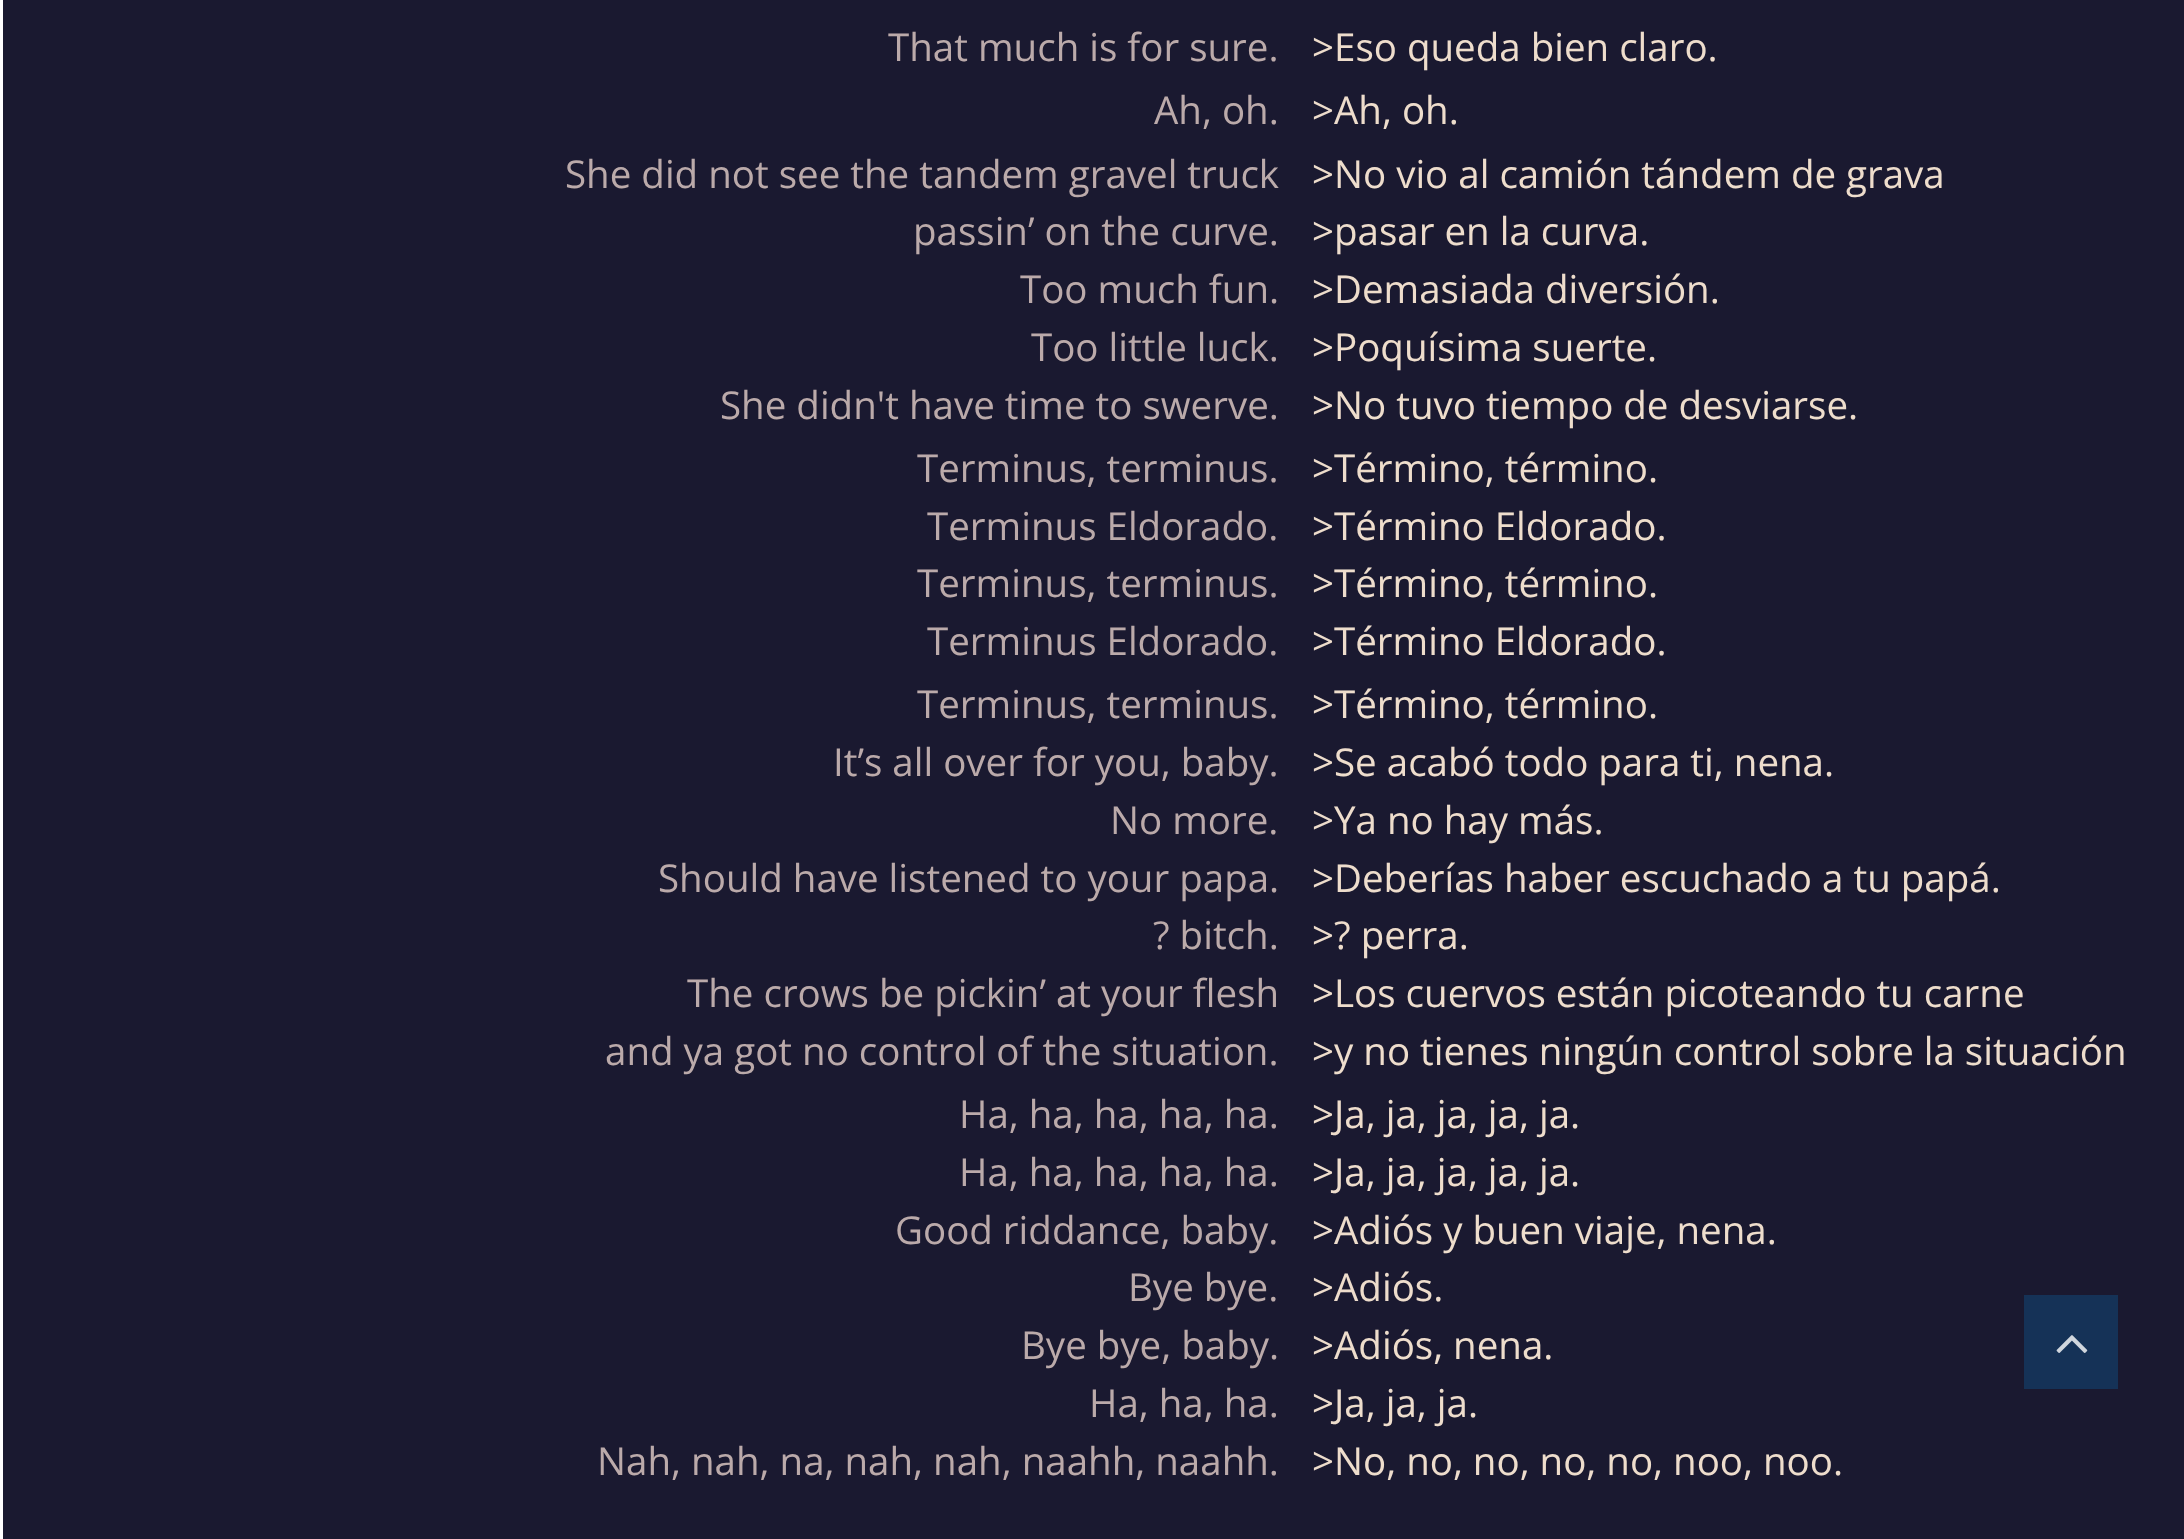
<?xml version="1.0" encoding="UTF-8"?>
<svg xmlns="http://www.w3.org/2000/svg" xmlns:xlink="http://www.w3.org/1999/xlink" width="2184" height="1539">
  <rect width="100%" height="100%" fill="#1a1930" />
  <rect width="3" height="1539" fill="#ffffff" />
  <rect x="2024" y="1295" width="94" height="94" fill="#153257" />
  <image x="2056" y="1335" width="32" height="18" xlink:href="image1.png" />
  <text x="888" y="61" style="font-family: Open Sans; font-size: 38.5px; fill: #bbaaaa">That much is for sure.</text>
  <text x="1312" y="61" style="font-family: Open Sans; font-size: 38.5px; fill: #eeddcc">&gt;Eso queda bien claro.</text>
  <text x="1154" y="124" style="font-family: Open Sans; font-size: 38.5px; fill: #bbaaaa">Ah, oh.</text>
  <text x="1312" y="124" style="font-family: Open Sans; font-size: 38.5px; fill: #eeddcc">&gt;Ah, oh.</text>
  <text x="565" y="188" style="font-family: Open Sans; font-size: 38.5px; fill: #bbaaaa">She did not see the tandem gravel truck</text>
  <text x="913" y="245" style="font-family: Open Sans; font-size: 38.5px; fill: #bbaaaa">passin’ on the curve.</text>
  <text x="1020" y="303" style="font-family: Open Sans; font-size: 38.5px; fill: #bbaaaa">Too much fun.</text>
  <text x="1031" y="361" style="font-family: Open Sans; font-size: 38.5px; fill: #bbaaaa">Too little luck.</text>
  <text x="720" y="419" style="font-family: Open Sans; font-size: 38.5px; fill: #bbaaaa">She didn't have time to swerve.</text>
  <text x="1312" y="188" style="font-family: Open Sans; font-size: 38.5px; fill: #eeddcc">&gt;No vio al camión tándem de grava</text>
  <text x="1312" y="245" style="font-family: Open Sans; font-size: 38.5px; fill: #eeddcc">&gt;pasar en la curva.</text>
  <text x="1312" y="303" style="font-family: Open Sans; font-size: 38.5px; fill: #eeddcc">&gt;Demasiada diversión.</text>
  <text x="1312" y="361" style="font-family: Open Sans; font-size: 38.5px; fill: #eeddcc">&gt;Poquísima suerte.</text>
  <text x="1312" y="419" style="font-family: Open Sans; font-size: 38.5px; fill: #eeddcc">&gt;No tuvo tiempo de desviarse.</text>
  <text x="917" y="482" style="font-family: Open Sans; font-size: 38.5px; fill: #bbaaaa">Terminus, terminus.</text>
  <text x="927" y="540" style="font-family: Open Sans; font-size: 38.5px; fill: #bbaaaa">Terminus Eldorado.</text>
  <text x="917" y="597" style="font-family: Open Sans; font-size: 38.5px; fill: #bbaaaa">Terminus, terminus.</text>
  <text x="927" y="655" style="font-family: Open Sans; font-size: 38.5px; fill: #bbaaaa">Terminus Eldorado.</text>
  <text x="1312" y="482" style="font-family: Open Sans; font-size: 38.5px; fill: #eeddcc">&gt;Término, término.</text>
  <text x="1312" y="540" style="font-family: Open Sans; font-size: 38.5px; fill: #eeddcc">&gt;Término Eldorado.</text>
  <text x="1312" y="597" style="font-family: Open Sans; font-size: 38.5px; fill: #eeddcc">&gt;Término, término.</text>
  <text x="1312" y="655" style="font-family: Open Sans; font-size: 38.5px; fill: #eeddcc">&gt;Término Eldorado.</text>
  <text x="917" y="718" style="font-family: Open Sans; font-size: 38.5px; fill: #bbaaaa">Terminus, terminus.</text>
  <text x="833" y="776" style="font-family: Open Sans; font-size: 38.5px; fill: #bbaaaa">It’s all over for you, baby.</text>
  <text x="1110" y="834" style="font-family: Open Sans; font-size: 38.5px; fill: #bbaaaa">No more.</text>
  <text x="658" y="892" style="font-family: Open Sans; font-size: 38.5px; fill: #bbaaaa">Should have listened to your papa.</text>
  <text x="1153" y="949" style="font-family: Open Sans; font-size: 38.5px; fill: #bbaaaa">? bitch.</text>
  <text x="687" y="1007" style="font-family: Open Sans; font-size: 38.5px; fill: #bbaaaa">The crows be pickin’ at your flesh</text>
  <text x="605" y="1065" style="font-family: Open Sans; font-size: 38.5px; fill: #bbaaaa">and ya got no control of the situation.</text>
  <text x="1312" y="718" style="font-family: Open Sans; font-size: 38.5px; fill: #eeddcc">&gt;Término, término.</text>
  <text x="1312" y="776" style="font-family: Open Sans; font-size: 38.5px; fill: #eeddcc">&gt;Se acabó todo para ti, nena.</text>
  <text x="1312" y="834" style="font-family: Open Sans; font-size: 38.5px; fill: #eeddcc">&gt;Ya no hay más.</text>
  <text x="1312" y="892" style="font-family: Open Sans; font-size: 38.5px; fill: #eeddcc">&gt;Deberías haber escuchado a tu papá.</text>
  <text x="1312" y="949" style="font-family: Open Sans; font-size: 38.5px; fill: #eeddcc">&gt;? perra.</text>
  <text x="1312" y="1007" style="font-family: Open Sans; font-size: 38.5px; fill: #eeddcc">&gt;Los cuervos están picoteando tu carne</text>
  <text x="1312" y="1065" style="font-family: Open Sans; font-size: 38.5px; fill: #eeddcc">&gt;y no tienes ningún control sobre la situación</text>
  <text x="959" y="1128" style="font-family: Open Sans; font-size: 38.5px; fill: #bbaaaa">Ha, ha, ha, ha, ha.</text>
  <text x="959" y="1186" style="font-family: Open Sans; font-size: 38.5px; fill: #bbaaaa">Ha, ha, ha, ha, ha.</text>
  <text x="895" y="1244" style="font-family: Open Sans; font-size: 38.5px; fill: #bbaaaa">Good riddance, baby.</text>
  <text x="1128" y="1301" style="font-family: Open Sans; font-size: 38.5px; fill: #bbaaaa">Bye bye.</text>
  <text x="1021" y="1359" style="font-family: Open Sans; font-size: 38.5px; fill: #bbaaaa">Bye bye, baby.</text>
  <text x="1089" y="1417" style="font-family: Open Sans; font-size: 38.5px; fill: #bbaaaa">Ha, ha, ha.</text>
  <text x="597" y="1475" style="font-family: Open Sans; font-size: 38.5px; fill: #bbaaaa">Nah, nah, na, nah, nah, naahh, naahh.</text>
  <text x="1312" y="1128" style="font-family: Open Sans; font-size: 38.5px; fill: #eeddcc">&gt;Ja, ja, ja, ja, ja.</text>
  <text x="1312" y="1186" style="font-family: Open Sans; font-size: 38.5px; fill: #eeddcc">&gt;Ja, ja, ja, ja, ja.</text>
  <text x="1312" y="1244" style="font-family: Open Sans; font-size: 38.5px; fill: #eeddcc">&gt;Adiós y buen viaje, nena.</text>
  <text x="1312" y="1301" style="font-family: Open Sans; font-size: 38.5px; fill: #eeddcc">&gt;Adiós.</text>
  <text x="1312" y="1359" style="font-family: Open Sans; font-size: 38.5px; fill: #eeddcc">&gt;Adiós, nena.</text>
  <text x="1312" y="1417" style="font-family: Open Sans; font-size: 38.5px; fill: #eeddcc">&gt;Ja, ja, ja.</text>
  <text x="1312" y="1475" style="font-family: Open Sans; font-size: 38.5px; fill: #eeddcc">&gt;No, no, no, no, no, noo, noo.</text>
</svg>
